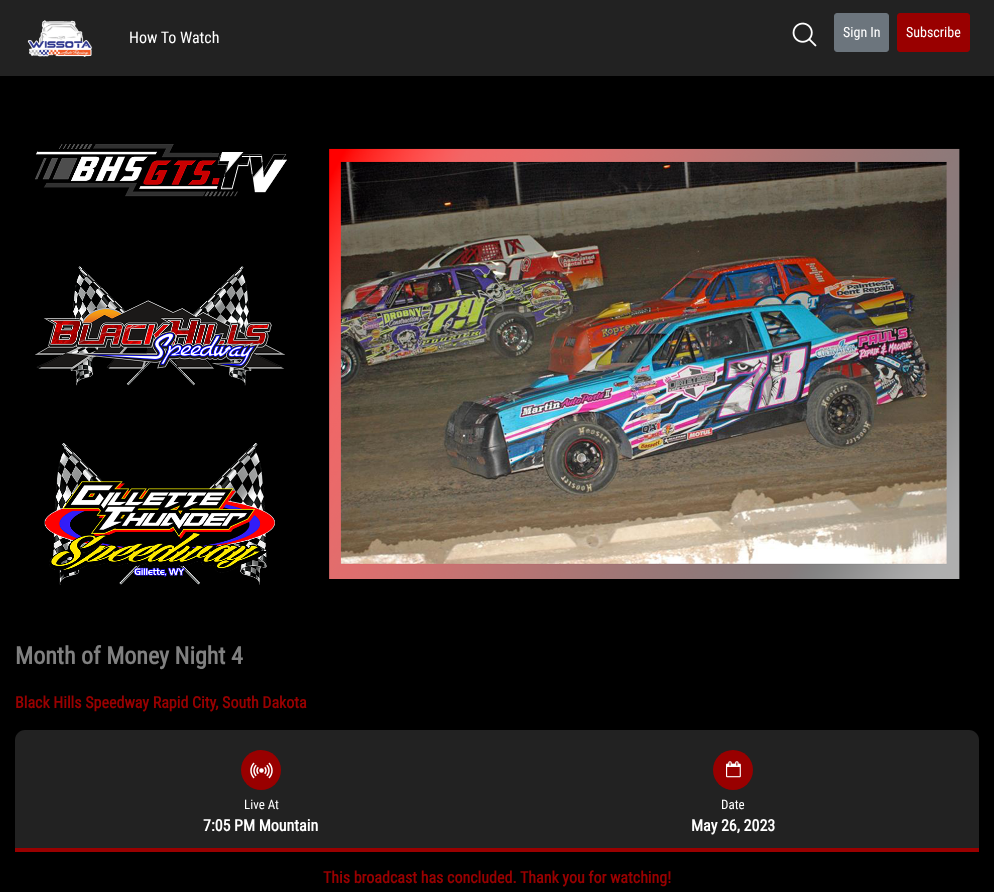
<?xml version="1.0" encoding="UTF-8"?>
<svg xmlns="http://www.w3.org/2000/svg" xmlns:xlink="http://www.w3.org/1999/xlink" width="994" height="892">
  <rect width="100%" height="100%" fill="#000000" />
  <rect width="994" height="76" fill="#222222" />
  <image x="27" y="20" width="66" height="37" xlink:href="image1.png" />
  <image x="792" y="22" width="25" height="25" xlink:href="image2.png" />
  <rect x="834.5" y="13.5" width="54" height="38" rx="2.5" fill="#6c757d" stroke="#6c757d" />
  <rect x="897.5" y="13.5" width="72" height="38" rx="2.5" fill="#990000" stroke="#990000" />
  <image x="35" y="144" width="925" height="441" xlink:href="image3.png" />
  <path d="M 25 730 h 944 c 5.5 0 10 4.5 10 10 v 108 h -964 v -108 c 0 -5.5 4.5 -10 10 -10 z" fill="#222222" />
  <circle cx="261" cy="770" r="20" fill="#990000" />
  <image x="250" y="762" width="23" height="17" xlink:href="image4.png" />
  <circle cx="733" cy="770" r="20" fill="#990000" />
  <image x="726" y="761" width="15" height="17" xlink:href="image5.png" />
  <rect x="15" y="848" width="964" height="4" fill="#990000" />
  <text x="129" y="43" style="font-family: Roboto Condensed; font-size: 16px; fill: #ffffff">How To Watch</text>
  <text x="843" y="37" style="font-family: Roboto Condensed; font-size: 14px; fill: #ffffff">Sign In</text>
  <text x="906" y="37" style="font-family: Roboto Condensed; font-size: 14px; fill: #ffffff">Subscribe</text>
  <text x="15" y="664" style="font-family: Roboto Condensed; font-size: 24px; font-weight: bold; fill: #808080">Month of Money Night 4</text>
  <text x="15" y="708" style="font-family: Roboto Condensed; font-size: 16px; font-weight: bold; fill: #990000">Black Hills Speedway Rapid City, South Dakota</text>
  <text x="244" y="809" style="font-family: Roboto Condensed; font-size: 13px; fill: #ffffff">Live At</text>
  <text x="203" y="831" style="font-family: Roboto Condensed; font-size: 16px; font-weight: bold; fill: #ffffff">7:05 PM Mountain</text>
  <text x="721" y="809" style="font-family: Roboto Condensed; font-size: 13px; fill: #ffffff">Date</text>
  <text x="691" y="831" style="font-family: Roboto Condensed; font-size: 16px; font-weight: bold; fill: #ffffff">May 26, 2023</text>
  <text x="323" y="883" style="font-family: Roboto Condensed; font-size: 16px; font-weight: bold; fill: #990000">This broadcast has concluded. Thank you for watching!</text>
</svg>
